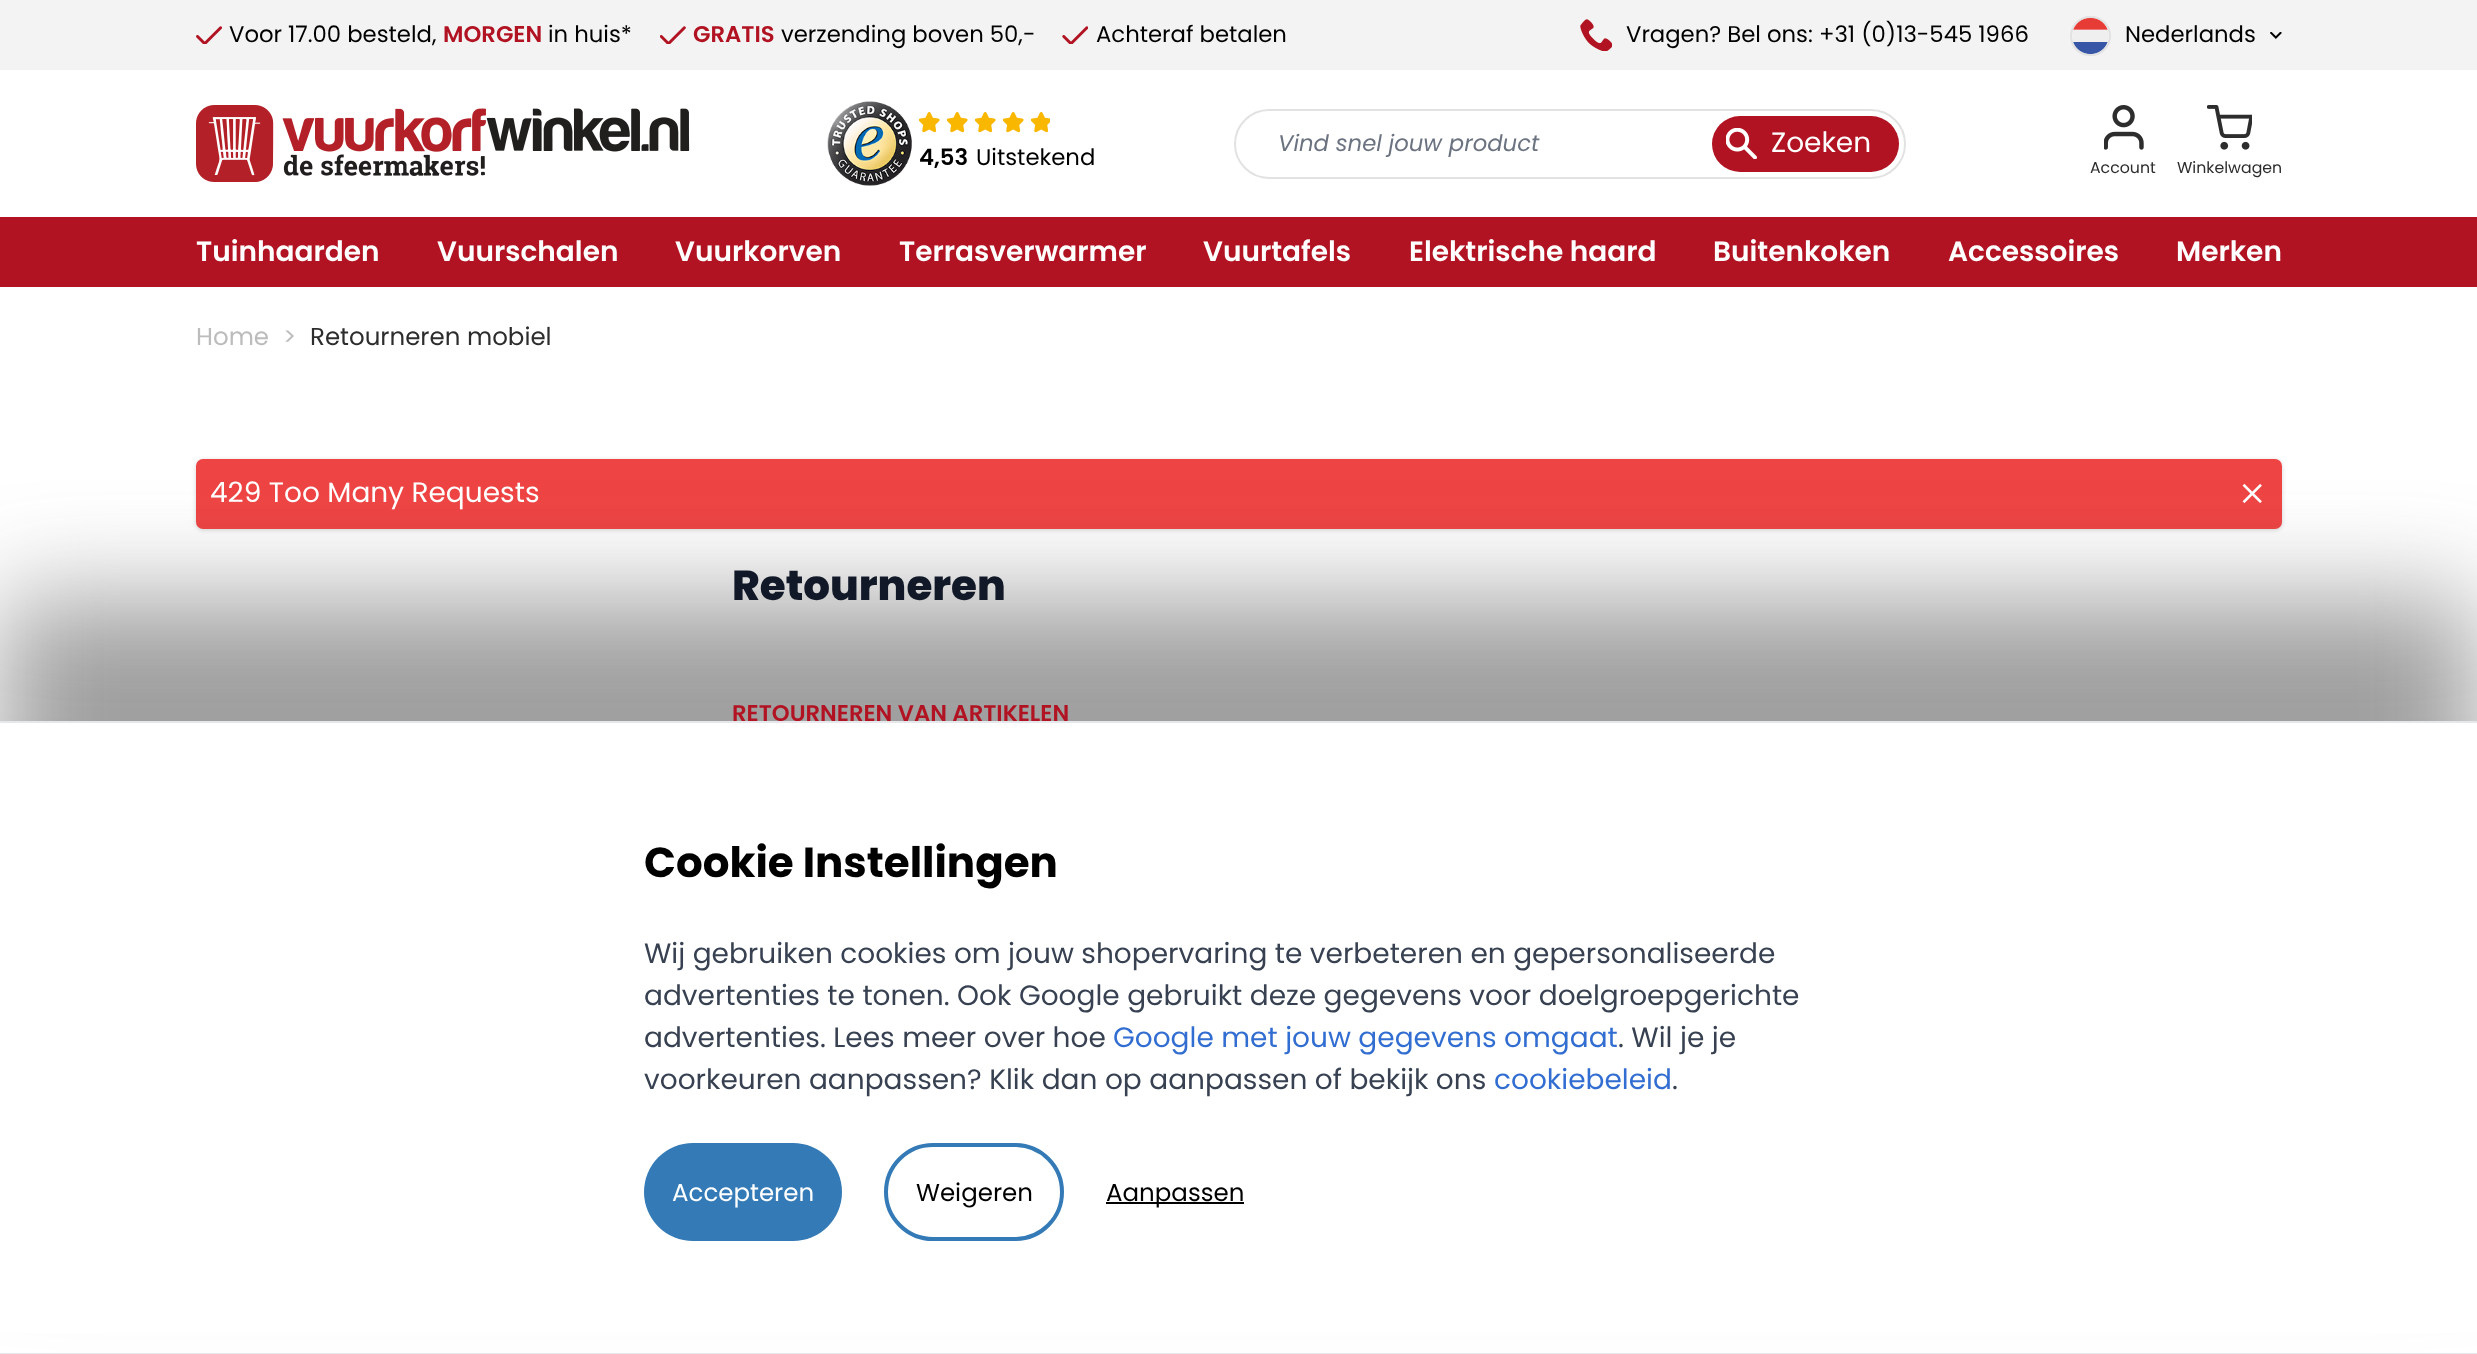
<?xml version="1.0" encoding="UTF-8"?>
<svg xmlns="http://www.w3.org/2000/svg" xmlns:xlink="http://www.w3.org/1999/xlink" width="2477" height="1354">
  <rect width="100%" height="100%" fill="#ffffff" />
  <rect width="2477" height="70" fill="#f3f3f3" />
  <image x="196" y="26" width="26" height="18" xlink:href="image1.png" />
  <image x="660" y="26" width="26" height="18" xlink:href="image2.png" />
  <image x="1062" y="26" width="26" height="18" xlink:href="image3.png" />
  <image x="1580" y="19" width="32" height="32" xlink:href="image4.png" />
  <rect x="2071" y="17" width="39" height="38" rx="19" fill="none" stroke="#e2e2e2" stroke-width="2" />
  <image x="2073" y="18" width="35" height="36" xlink:href="image5.png" />
  <image x="2270" y="32" width="12" height="7" xlink:href="image6.png" />
  <image x="196" y="105" width="494" height="77" xlink:href="image7.png" />
  <image x="827" y="101" width="85" height="85" xlink:href="image8.png" />
  <image x="919" y="112" width="20" height="20" xlink:href="image9.png" />
  <image x="947" y="112" width="20" height="20" xlink:href="image9.png" />
  <image x="975" y="112" width="20" height="20" xlink:href="image9.png" />
  <image x="1003" y="112" width="20" height="20" xlink:href="image9.png" />
  <image x="1031" y="112" width="19" height="20" xlink:href="image10.png" />
  <image x="919" y="112" width="21" height="21" xlink:href="image11.png" />
  <image x="947" y="112" width="21" height="21" xlink:href="image11.png" />
  <image x="975" y="112" width="21" height="21" xlink:href="image11.png" />
  <image x="1003" y="112" width="21" height="21" xlink:href="image11.png" />
  <image x="1031" y="112" width="19" height="21" xlink:href="image12.png" />
  <rect x="1235" y="110" width="670" height="68" rx="34" fill="none" stroke="#e2e2e2" stroke-width="2" />
  <rect x="1712" y="116" width="187" height="56" rx="28" fill="#b11322" />
  <image x="1726" y="128" width="31" height="31" xlink:href="image13.png" />
  <image x="2104" y="105" width="40" height="45" xlink:href="image14.png" />
  <image x="2207" y="105" width="45" height="45" xlink:href="image15.png" />
  <rect y="217" width="2477" height="70" fill="#b11322" />
  <rect x="196" y="460" width="2086" height="70" rx="7" fill="#000000" fill-opacity="0.06" filter="blur(2px)" />
  <rect x="196" y="460" width="2086" height="70" rx="7" fill="#000000" fill-opacity="0.1" filter="blur(2.5px)" />
  <rect x="196" y="459" width="2086" height="70" rx="7" fill="#ef4444" />
  <image x="2242" y="483" width="20" height="21" xlink:href="image16.png" />
  <rect y="599" width="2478" height="633" fill="#404040" fill-opacity="0.5" filter="blur(52.5px)" />
  <rect y="723" width="2477" height="610" fill="#ffffff" />
  <rect y="1353" width="2477" height="1" fill="#e5e7eb" />
  <rect x="644" y="1143" width="198" height="98" rx="49" fill="#337ab7" />
  <rect x="886" y="1145" width="176" height="94" rx="47" fill="none" stroke="#337ab7" stroke-width="4" />
  <rect x="1106" y="1202" width="138" height="2" fill="#000000" />
  <text x="229" y="42" style="font-family: Poppins; font-size: 22.75px; fill: #000000">Voor 17.00 besteld,</text>
  <text x="443" y="42" style="font-family: Poppins; font-size: 22.75px; font-weight: 600; fill: #b21322">MORGEN</text>
  <text x="548" y="42" style="font-family: Poppins; font-size: 22.75px; fill: #000000">in huis*</text>
  <text x="693" y="42" style="font-family: Poppins; font-size: 22.75px; font-weight: 600; fill: #b21322">GRATIS</text>
  <text x="781" y="42" style="font-family: Poppins; font-size: 22.75px; fill: #000000">verzending boven 50,-</text>
  <text x="1096" y="42" style="font-family: Poppins; font-size: 22.75px; fill: #000000">Achteraf betalen</text>
  <text x="1626" y="42" style="font-family: Poppins; font-size: 22.75px; fill: #000000">Vragen? Bel ons: +31 (0)13-545 1966</text>
  <text x="2125" y="42" style="font-family: Poppins; font-size: 22.75px; fill: #000000">Nederlands</text>
  <text x="919" y="165" style="font-family: Poppins; font-size: 22.75px; font-weight: 600; fill: #000000">4,53</text>
  <text x="976" y="165" style="font-family: Poppins; font-size: 22.75px; fill: #000000">Uitstekend</text>
  <text x="1278" y="151" style="font-family: Poppins; font-size: 22.75px; font-style: italic; fill: #6b7280">Vind snel jouw product</text>
  <text x="1771" y="152" style="font-family: Poppins; font-size: 28px; fill: #ffffff">Zoeken</text>
  <text x="2090" y="173" style="font-family: Poppins; font-size: 15.75px; fill: #2d2d2d">Account</text>
  <text x="2177" y="173" style="font-family: Poppins; font-size: 15.75px; fill: #2d2d2d">Winkelwagen</text>
  <text x="196" y="261" style="font-family: Poppins; font-size: 28px; font-weight: 600; fill: #ffffff">Tuinhaarden</text>
  <text x="437" y="261" style="font-family: Poppins; font-size: 28px; font-weight: 600; fill: #ffffff">Vuurschalen</text>
  <text x="675" y="261" style="font-family: Poppins; font-size: 28px; font-weight: 600; fill: #ffffff">Vuurkorven</text>
  <text x="899" y="261" style="font-family: Poppins; font-size: 28px; font-weight: 600; fill: #ffffff">Terrasverwarmer</text>
  <text x="1203" y="261" style="font-family: Poppins; font-size: 28px; font-weight: 600; fill: #ffffff">Vuurtafels</text>
  <text x="1409" y="261" style="font-family: Poppins; font-size: 28px; font-weight: 600; fill: #ffffff">Elektrische haard</text>
  <text x="1713" y="261" style="font-family: Poppins; font-size: 28px; font-weight: 600; fill: #ffffff">Buitenkoken</text>
  <text x="1948" y="261" style="font-family: Poppins; font-size: 28px; font-weight: 600; fill: #ffffff">Accessoires</text>
  <text x="2176" y="261" style="font-family: Poppins; font-size: 28px; font-weight: 600; fill: #ffffff">Merken</text>
  <text x="196" y="345" style="font-family: Poppins; font-size: 24.5px; fill: #bcbcbc">Home</text>
  <text x="283" y="345" style="font-family: Poppins; font-size: 24.5px; fill: #bcbcbc">&gt;</text>
  <text x="310" y="345" style="font-family: Poppins; font-size: 24.5px; fill: #2d2d2d">Retourneren mobiel</text>
  <text x="210" y="502" style="font-family: Poppins; font-size: 28px; fill: #ffffff">429 Too Many Requests</text>
  <text x="732" y="600" style="font-family: Poppins; font-size: 42px; font-weight: 800; fill: #111827">Retourneren</text>
  <text x="732" y="721" style="font-family: Poppins; font-size: 22.75px; font-weight: 600; fill: #b21322">RETOURNEREN VAN ARTIKELEN</text>
  <rect y="721" width="2477" height="2" fill="#e5e7eb" />
  <text x="644" y="877" style="font-family: Poppins; font-size: 42px; font-weight: bold; fill: #000000">Cookie Instellingen</text>
  <text x="644" y="963" style="font-family: Poppins; font-size: 28px; fill: #374151">Wij gebruiken cookies om jouw shopervaring te verbeteren en gepersonaliseerde</text>
  <text x="644" y="1005" style="font-family: Poppins; font-size: 28px; fill: #374151">advertenties te tonen. Ook Google gebruikt deze gegevens voor doelgroepgerichte</text>
  <text x="644" y="1047" style="font-family: Poppins; font-size: 28px; fill: #374151">advertenties. Lees meer over hoe</text>
  <text x="1113" y="1047" style="font-family: Poppins; font-size: 28px; fill: #326ed1">Google met jouw gegevens omgaat</text>
  <text x="1618" y="1047" style="font-family: Poppins; font-size: 28px; fill: #374151">. Wil je je</text>
  <text x="644" y="1089" style="font-family: Poppins; font-size: 28px; fill: #374151">voorkeuren aanpassen? Klik dan op aanpassen of bekijk ons</text>
  <text x="1494" y="1089" style="font-family: Poppins; font-size: 28px; fill: #326ed1">cookiebeleid</text>
  <text x="1672" y="1089" style="font-family: Poppins; font-size: 28px; fill: #374151">.</text>
  <text x="672" y="1201" style="font-family: Poppins; font-size: 24.5px; fill: #ffffff">Accepteren</text>
  <text x="916" y="1201" style="font-family: Poppins; font-size: 24.5px; fill: #000000">Weigeren</text>
  <text x="1106" y="1201" style="font-family: Poppins; font-size: 24.5px; fill: #000000">Aanpassen</text>
</svg>
